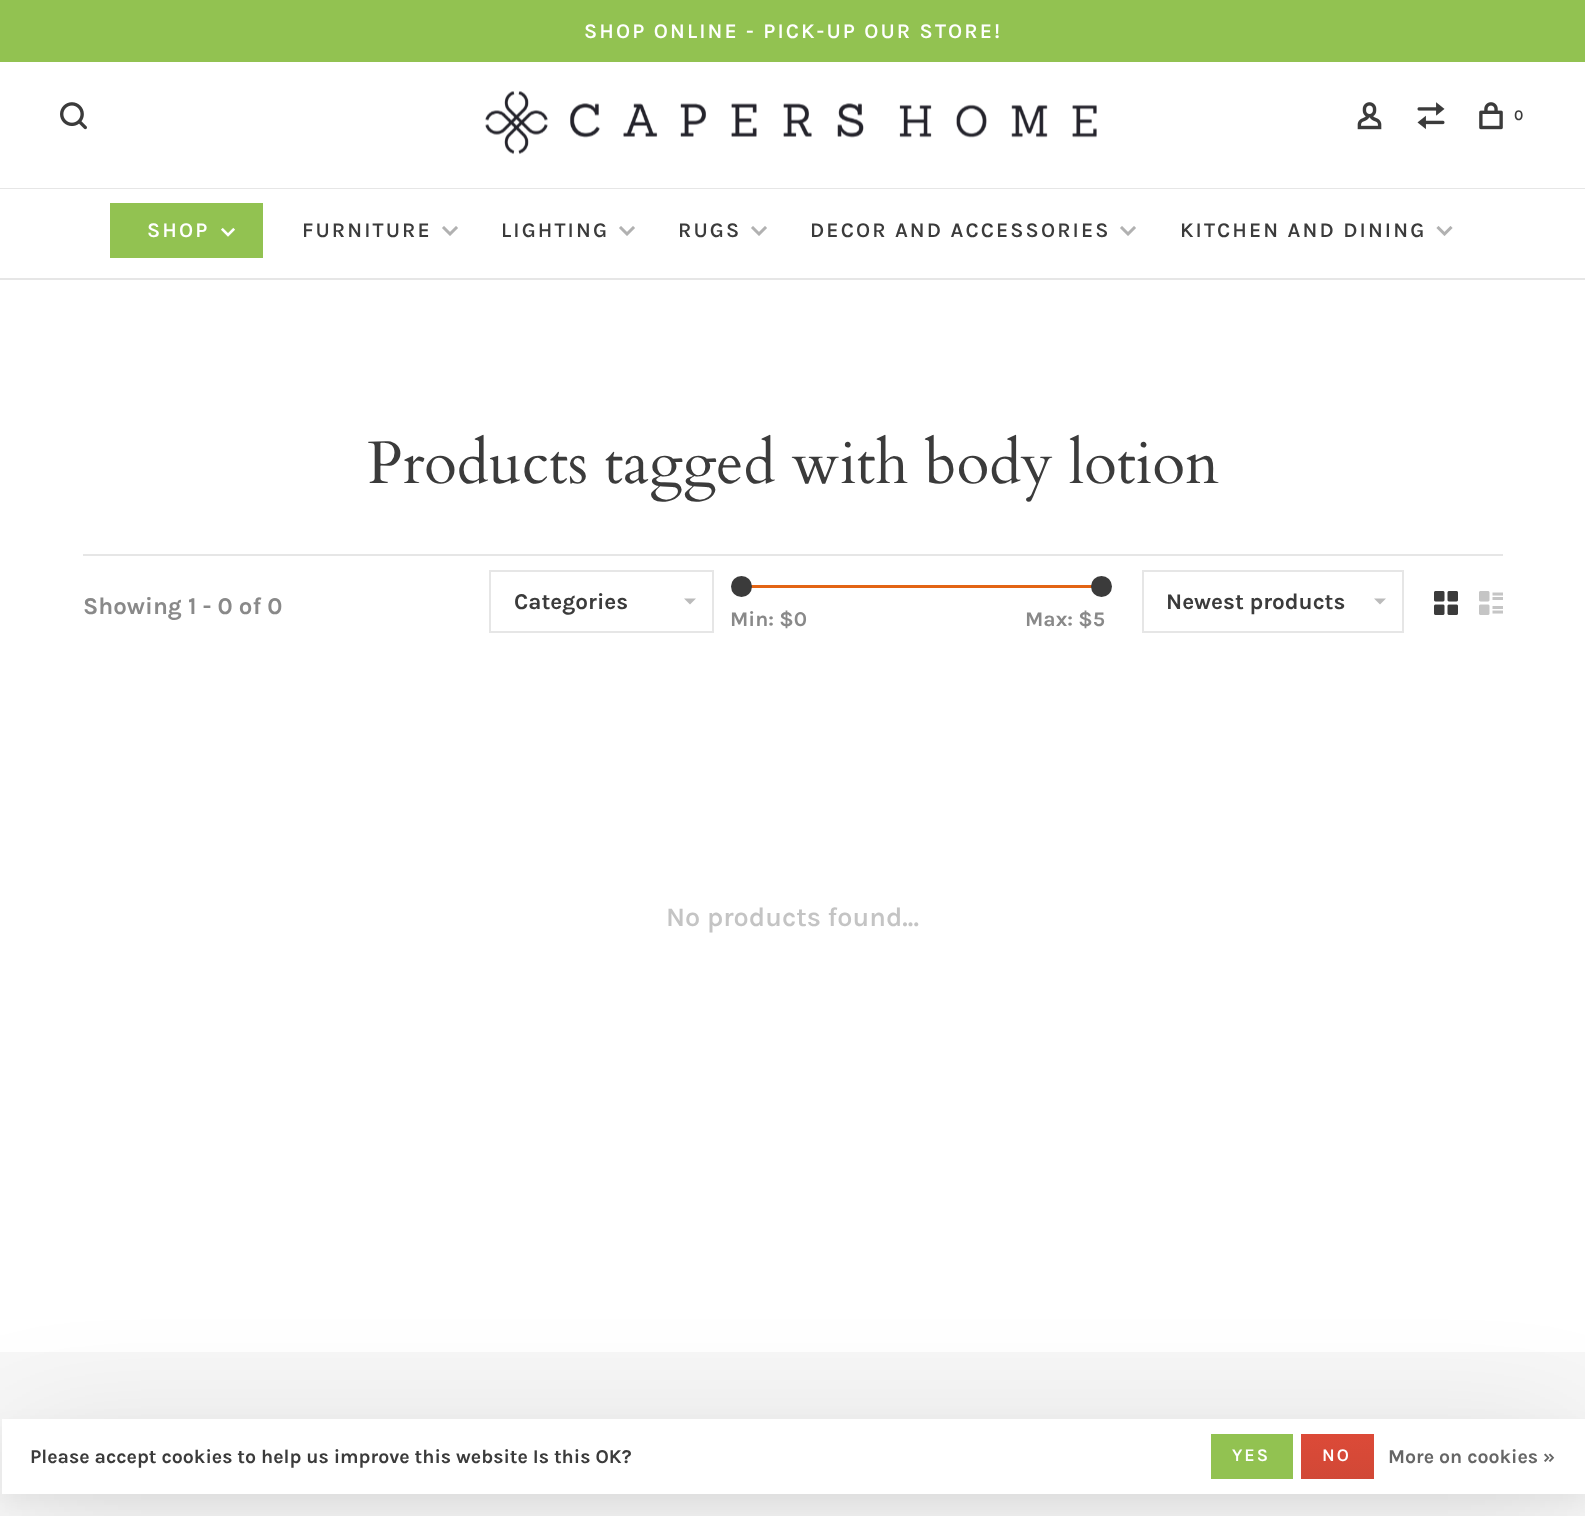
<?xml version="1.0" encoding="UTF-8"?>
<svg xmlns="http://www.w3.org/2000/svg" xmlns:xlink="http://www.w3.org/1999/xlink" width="1585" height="1516">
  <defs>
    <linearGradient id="g1" gradientUnits="userSpaceOnUse" x1="1337" y1="1434" x2="1337" y2="1479"><stop offset="0" stop-color="#dc4a38" /><stop offset="1" stop-color="#d14836" /></linearGradient>
  </defs>
  <rect width="100%" height="100%" fill="#ffffff" />
  <rect width="1585" height="62" fill="#92c251" />
  <rect y="188" width="1585" height="1" fill="#e6e6e6" />
  <image x="60" y="102" width="27" height="28" xlink:href="image1.png" />
  <image x="485" y="91" width="612" height="64" xlink:href="image2.png" />
  <image x="1357" y="102" width="25" height="28" xlink:href="image3.png" />
  <image x="1417" y="102" width="28" height="28" xlink:href="image4.png" />
  <image x="1479" y="102" width="24" height="28" xlink:href="image5.png" />
  <rect y="278" width="1585" height="2" fill="#e6e6e6" />
  <rect x="110" y="203" width="153" height="55" fill="#92c251" />
  <image x="221" y="227" width="14" height="10" xlink:href="image6.png" />
  <image x="442" y="226" width="16" height="10" xlink:href="image7.png" />
  <image x="619" y="226" width="16" height="10" xlink:href="image7.png" />
  <image x="751" y="226" width="16" height="10" xlink:href="image7.png" />
  <image x="1120" y="226" width="16" height="10" xlink:href="image7.png" />
  <image x="1436" y="226" width="17" height="10" xlink:href="image8.png" />
  <rect x="83" y="554" width="1420" height="2" fill="#e6e6e6" />
  <rect x="490" y="571" width="223" height="61" fill="none" stroke="#e6e6e6" stroke-width="2" />
  <path d="M 684 598.5 h 12 l -6 6 z" fill="#bbbbbb" />
  <rect x="751" y="585" width="346" height="3" fill="#e36414" />
  <circle cx="741.5" cy="586.5" r="10.5" fill="#3b3b3b" />
  <circle cx="1101.5" cy="586.5" r="10.5" fill="#3b3b3b" />
  <rect x="1143" y="571" width="260" height="61" fill="none" stroke="#e6e6e6" stroke-width="2" />
  <path d="M 1374 598.5 h 12 l -6 6 z" fill="#bbbbbb" />
  <image x="1434" y="591" width="24" height="24" xlink:href="image9.png" />
  <image x="1479" y="591" width="24" height="24" xlink:href="image10.png" />
  <rect y="1352" width="1585" height="164" fill="#f7f7f7" />
  <rect x="2" y="1428" width="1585" height="75" fill="#000000" fill-opacity="0.05" filter="blur(11px)" />
  <rect x="11" y="1449" width="1567" height="57" fill="#000000" fill-opacity="0.15" filter="blur(64.5px)" />
  <rect x="2" y="1419" width="1583" height="75" fill="#ffffff" />
  <rect x="1211" y="1434" width="82" height="45" fill="#92c251" />
  <rect x="1301" y="1434" width="73" height="45" fill="url(#g1)" />
  <text x="584" y="38" style="font-family: Karla; font-size: 21px; font-weight: 600; letter-spacing: 2.1px; fill: #ffffff">SHOP ONLINE - PICK-UP OUR STORE!</text>
  <text x="1514" y="120" style="font-family: Karla; font-size: 15px; font-weight: 600; letter-spacing: 2.1px; fill: #3b3b3b">0</text>
  <text x="147" y="237" style="font-family: Karla; font-size: 21px; font-weight: 600; letter-spacing: 2.1px; fill: #ffffff">SHOP</text>
  <text x="302" y="237" style="font-family: Karla; font-size: 21px; font-weight: 600; letter-spacing: 2.1px; fill: #3b3b3b">FURNITURE</text>
  <text x="501" y="237" style="font-family: Karla; font-size: 21px; font-weight: 600; letter-spacing: 2.1px; fill: #3b3b3b">LIGHTING</text>
  <text x="678" y="237" style="font-family: Karla; font-size: 21px; font-weight: 600; letter-spacing: 2.1px; fill: #3b3b3b">RUGS</text>
  <text x="810" y="237" style="font-family: Karla; font-size: 21px; font-weight: 600; letter-spacing: 2.1px; fill: #3b3b3b">DECOR AND ACCESSORIES</text>
  <text x="1180" y="237" style="font-family: Karla; font-size: 21px; font-weight: 600; letter-spacing: 2.1px; fill: #3b3b3b">KITCHEN AND DINING</text>
  <text x="367" y="483" style="font-family: Cardo; font-size: 60px; fill: #3b3b3b">Products tagged with body lotion</text>
  <text x="83" y="614" style="font-family: Karla; font-size: 24px; font-weight: bold; fill: #898989">Showing 1 - 0 of 0</text>
  <text x="514" y="609" style="font-family: Karla; font-size: 22.5px; font-weight: bold; fill: #3b3b3b">Categories</text>
  <text x="730" y="626" style="font-family: Karla; font-size: 21px; font-weight: bold; fill: #898989">Min: $0</text>
  <text x="1025" y="626" style="font-family: Karla; font-size: 21px; font-weight: bold; fill: #898989">Max: $5</text>
  <text x="1166" y="609" style="font-family: Karla; font-size: 22.5px; font-weight: bold; fill: #3b3b3b">Newest products</text>
  <text x="666" y="926" style="font-family: Karla; font-size: 27px; font-weight: 600; fill: #c4c4c4">No products found...</text>
  <text x="30" y="1463" style="font-family: Karla; font-size: 19.5px; font-weight: bold; fill: #3b3b3b">Please accept cookies to help us improve this website Is this OK?</text>
  <text x="1232" y="1461" style="font-family: Karla; font-size: 18px; font-weight: 600; letter-spacing: 2px; fill: #ffffff">YES</text>
  <text x="1322" y="1461" style="font-family: Karla; font-size: 18px; font-weight: 600; letter-spacing: 2px; fill: #ffffff">NO</text>
  <text x="1388" y="1463" style="font-family: Karla; font-size: 19.5px; font-weight: bold; fill: #666666">More on cookies »</text>
</svg>
